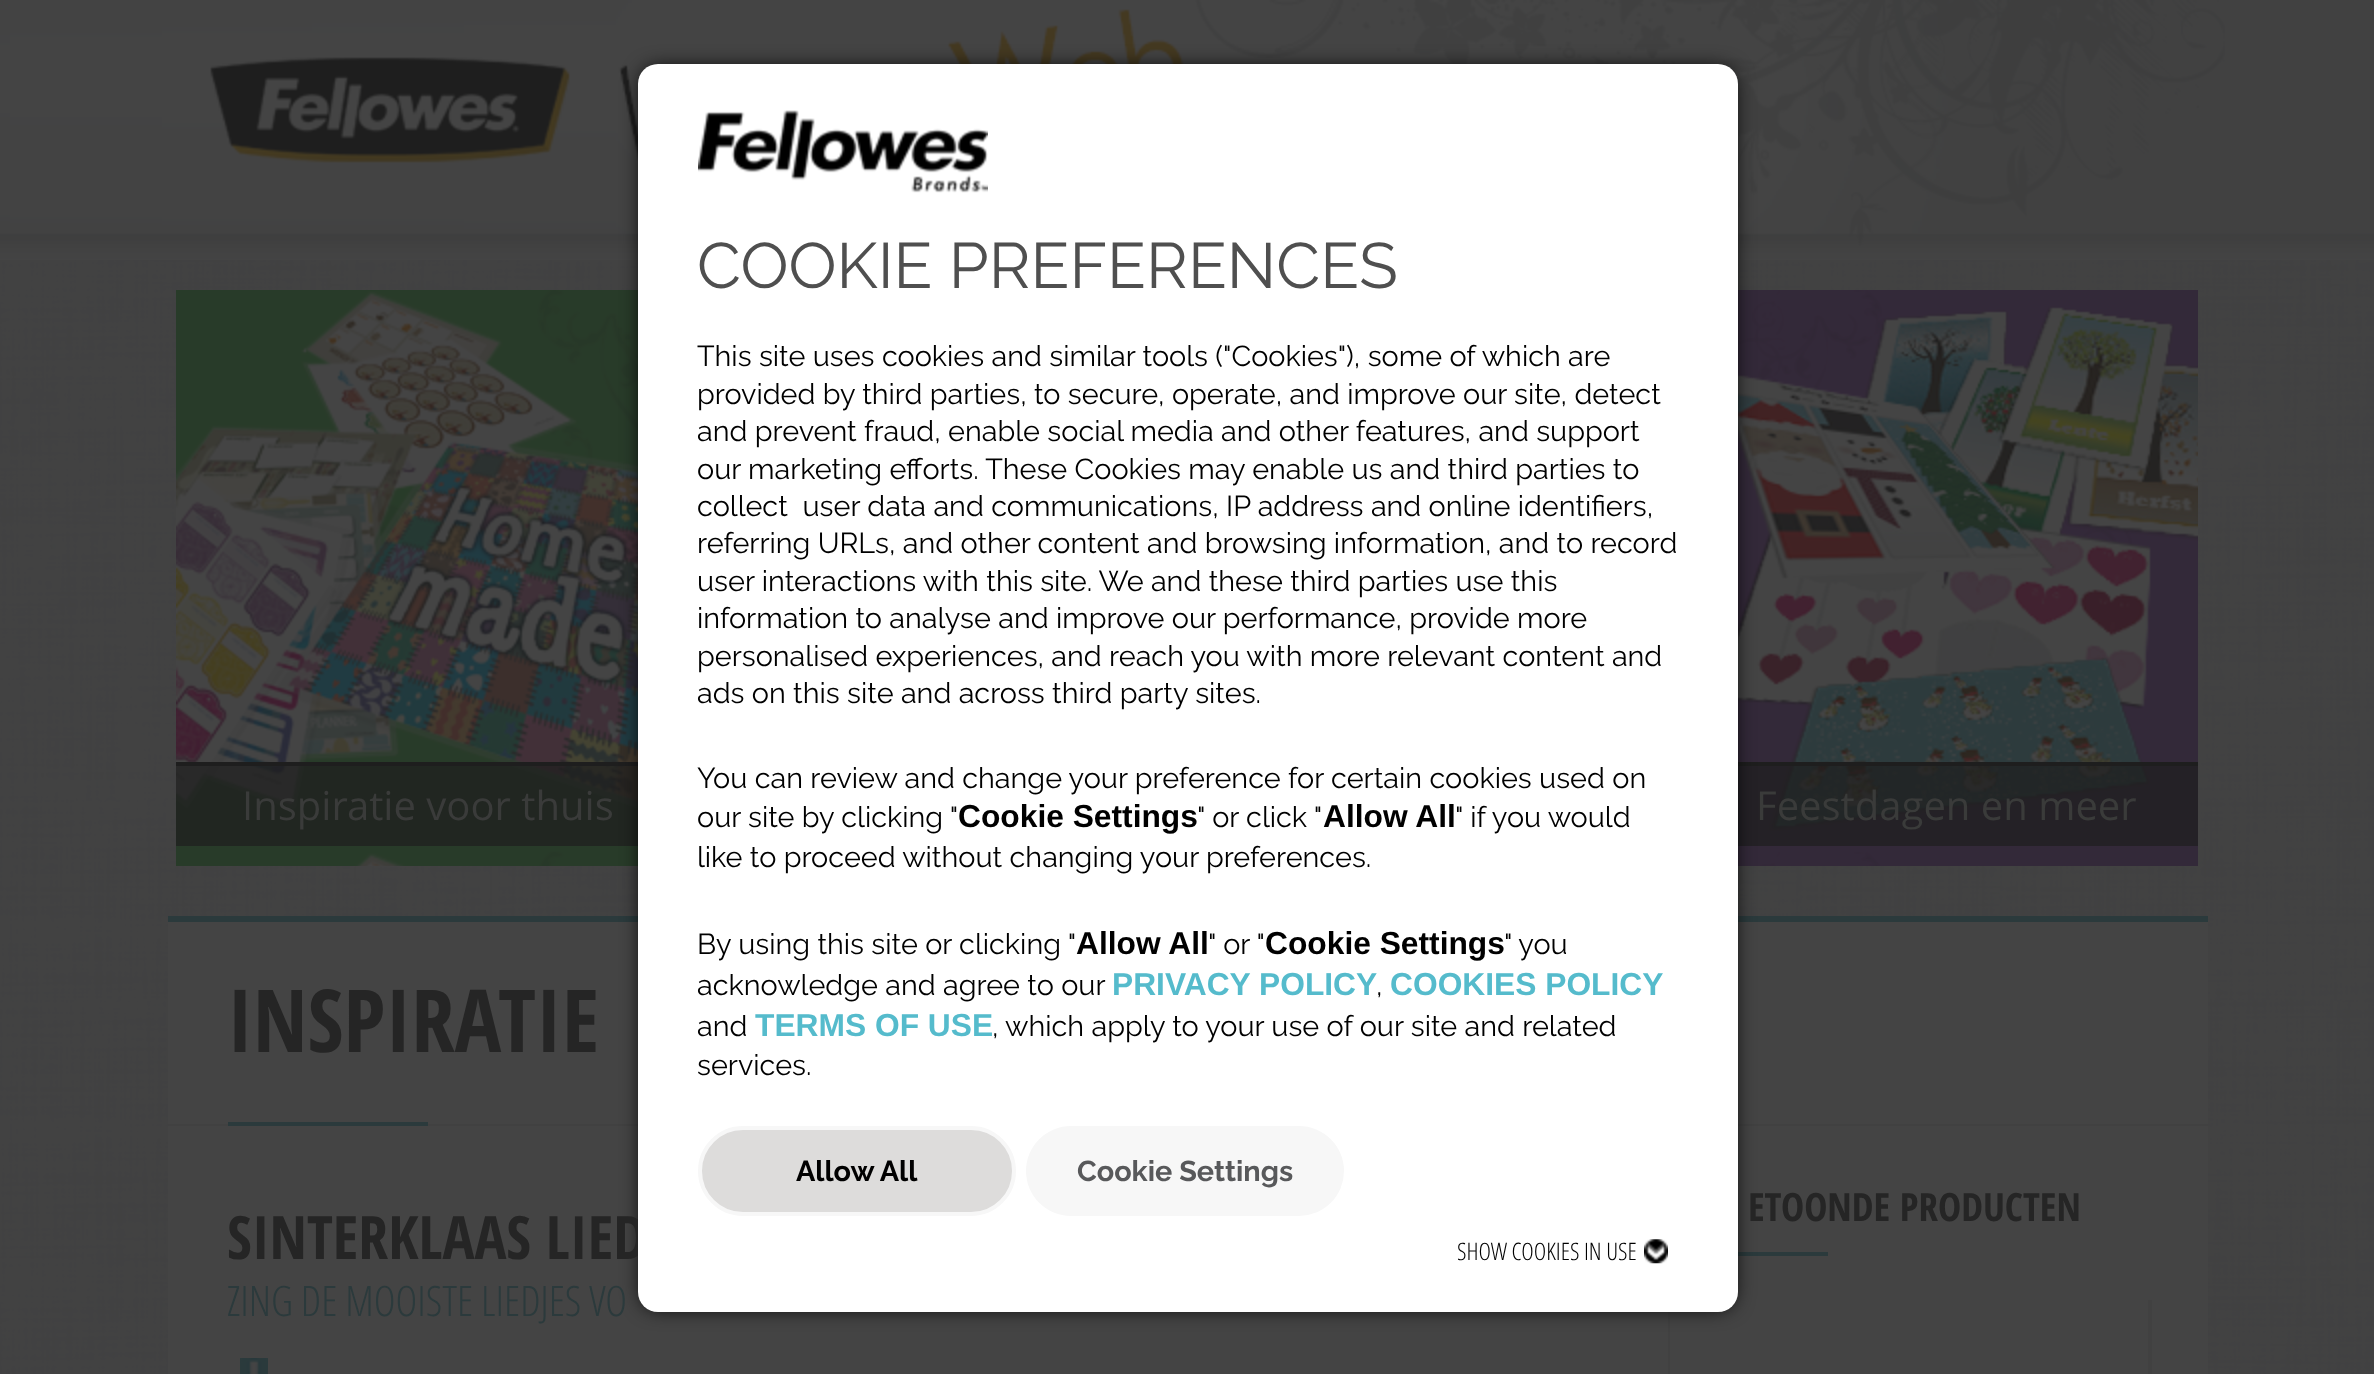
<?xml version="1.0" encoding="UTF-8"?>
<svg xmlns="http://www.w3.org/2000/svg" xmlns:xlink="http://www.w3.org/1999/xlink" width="2374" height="1374">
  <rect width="100%" height="100%" fill="#ffffff" />
  <image x="0" y="260" width="2374" height="1114" xlink:href="image1.png" />
  <image x="0" y="0" width="2374" height="260" xlink:href="image4.png" />
  <image x="176" y="290" width="462" height="576" xlink:href="image5.png" />
  <rect x="176" y="762" width="462" height="4" fill="#1e1e1e" />
  <rect x="176" y="766" width="462" height="80" fill="#1e1e1e" fill-opacity="0.7" />
  <image x="1738" y="290" width="460" height="576" xlink:href="image6.png" />
  <rect x="1738" y="762" width="460" height="4" fill="#1e1e1e" />
  <rect x="1738" y="766" width="460" height="80" fill="#1e1e1e" fill-opacity="0.7" />
  <rect x="168" y="922" width="2040" height="452" fill="#444444" />
  <rect x="168" y="916" width="2040" height="6" fill="#2b3a3c" />
  <rect x="168" y="1124" width="2040" height="2" fill="#414141" />
  <rect x="1738" y="1252" width="90" height="4" fill="#2b3a3c" />
  <rect x="1668" y="1312" width="2" height="62" fill="#414141" />
  <rect x="642" y="68" width="1092" height="1240" rx="16" fill="#000000" filter="blur(10px)" />
  <rect x="228" y="1122" width="200" height="4" fill="#2b3a3c" />
  <path d="M 1732 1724 v 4 h 420 v -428 h -4 v 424 z" fill="#414141" />
  <image x="240" y="1358" width="28" height="16" xlink:href="image7.png" />
  <text x="242" y="820" style="font-family: Open Sans; font-size: 40px; fill: #3a3b3a">Inspiratie voor thuis</text>
  <text x="1756" y="820" style="font-family: Open Sans; font-size: 40px; fill: #3a3b3a">Feestdagen en meer</text>
  <text x="227" y="1052" style="font-family: Open Sans Condensed; font-size: 87px; font-weight: bold; fill: #252525">INSPIRATIE</text>
  <text x="1748" y="1221" style="font-family: Open Sans Condensed; font-size: 39px; font-weight: bold; fill: #252525">ETOONDE PRODUCTEN</text>
  <text x="227" y="1259" style="font-family: Open Sans Condensed; font-size: 59.75px; font-weight: bold; fill: #252525">SINTERKLAAS LIED</text>
  <rect x="638" y="64" width="1100" height="1248" rx="20" fill="#ffffff" />
  <rect x="1026" y="1126" width="318" height="90" rx="45" fill="#f7f7f7" />
  <text x="1077" y="1181" style="font-family: Raleway; font-size: 28.8px; font-weight: bold; fill: #58595b">Cookie Settings</text>
  <rect x="700" y="1128" width="314" height="86" rx="43" fill="#dddcdb" stroke="#f7f7f7" stroke-width="4" />
  <text x="796" y="1181" style="font-family: Raleway; font-size: 28.8px; font-weight: bold; fill: #000000">Allow All</text>
  <text x="697" y="1075" style="font-family: Raleway; font-size: 28.8px; fill: #000000">services.</text>
  <text x="992" y="1036" style="font-family: Raleway; font-size: 28.8px; fill: #000000">, which apply to your use of our site and related</text>
  <text x="755" y="1036" style="font-family: Liberation Sans; font-size: 31.75px; font-weight: bold; fill: #55bbcc">TERMS OF USE</text>
  <text x="697" y="1036" style="font-family: Raleway; font-size: 28.8px; fill: #000000">and</text>
  <text x="1390" y="995" style="font-family: Liberation Sans; font-size: 31.75px; font-weight: bold; fill: #55bbcc">COOKIES POLICY</text>
  <text x="1376" y="995" style="font-family: Raleway; font-size: 28.8px; fill: #000000">,</text>
  <text x="1112" y="995" style="font-family: Liberation Sans; font-size: 31.75px; font-weight: bold; fill: #55bbcc">PRIVACY POLICY</text>
  <text x="697" y="995" style="font-family: Raleway; font-size: 28.8px; fill: #000000">acknowledge and agree to our</text>
  <text x="1504" y="954" style="font-family: Raleway; font-size: 28.8px; fill: #000000">" you</text>
  <text x="1265" y="954" style="font-family: Liberation Sans; font-size: 31.75px; font-weight: bold; fill: #000000">Cookie Settings</text>
  <text x="1208" y="954" style="font-family: Raleway; font-size: 28.8px; fill: #000000">" or "</text>
  <text x="1076" y="954" style="font-family: Liberation Sans; font-size: 31.75px; font-weight: bold; fill: #000000">Allow All</text>
  <text x="697" y="954" style="font-family: Raleway; font-size: 28.8px; fill: #000000">By using this site or clicking "</text>
  <text x="697" y="867" style="font-family: Raleway; font-size: 28.8px; fill: #000000">like to proceed without changing your preferences.</text>
  <text x="1455" y="827" style="font-family: Raleway; font-size: 28.8px; fill: #000000">" if you would</text>
  <text x="1323" y="827" style="font-family: Liberation Sans; font-size: 31.75px; font-weight: bold; fill: #000000">Allow All</text>
  <text x="1197" y="827" style="font-family: Raleway; font-size: 28.8px; fill: #000000">" or click "</text>
  <text x="958" y="827" style="font-family: Liberation Sans; font-size: 31.75px; font-weight: bold; fill: #000000">Cookie Settings</text>
  <text x="697" y="827" style="font-family: Raleway; font-size: 28.8px; fill: #000000">our site by clicking "</text>
  <text x="697" y="788" style="font-family: Raleway; font-size: 28.8px; fill: #000000">You can review and change your preference for certain cookies used on</text>
  <text x="697" y="703" style="font-family: Raleway; font-size: 28.8px; fill: #000000">ads on this site and across third party sites.</text>
  <text x="697" y="666" style="font-family: Raleway; font-size: 28.8px; fill: #000000">personalised experiences, and reach you with more relevant content and</text>
  <text x="697" y="628" style="font-family: Raleway; font-size: 28.8px; fill: #000000">information to analyse and improve our performance, provide more</text>
  <text x="697" y="591" style="font-family: Raleway; font-size: 28.8px; fill: #000000">user interactions with this site. We and these third parties use this</text>
  <text x="697" y="553" style="font-family: Raleway; font-size: 28.8px; fill: #000000">referring URLs, and other content and browsing information, and to record</text>
  <text x="697" y="516" style="font-family: Raleway; font-size: 28.8px; fill: #000000" xml:space="preserve">collect  user data and communications, IP address and online identifiers,</text>
  <text x="697" y="479" style="font-family: Raleway; font-size: 28.8px; fill: #000000">our marketing efforts. These Cookies may enable us and third parties to</text>
  <text x="697" y="441" style="font-family: Raleway; font-size: 28.8px; fill: #000000">and prevent fraud, enable social media and other features, and support</text>
  <text x="697" y="404" style="font-family: Raleway; font-size: 28.8px; fill: #000000">provided by third parties, to secure, operate, and improve our site, detect</text>
  <text x="697" y="366" style="font-family: Raleway; font-size: 28.8px; fill: #000000">This site uses cookies and similar tools ("Cookies"), some of which are</text>
  <text x="697" y="288" style="font-family: Raleway; font-size: 64px; fill: #4f4f4f">COOKIE PREFERENCES</text>
  <image x="698" y="110" width="290" height="83" xlink:href="image2.png" />
  <text x="1457" y="1260" style="font-family: Open Sans; font-size: 24px; font-weight: 300; fill: #000000">SHOW COOKIES IN USE</text>
  <image x="1644" y="1239" width="24" height="25" xlink:href="image3.png" />
  <text x="227" y="1316" style="font-family: Open Sans; font-size: 41.9px; font-weight: 300; fill: #2b3a3c">ZING DE MOOISTE LIEDJES VO</text>
</svg>
